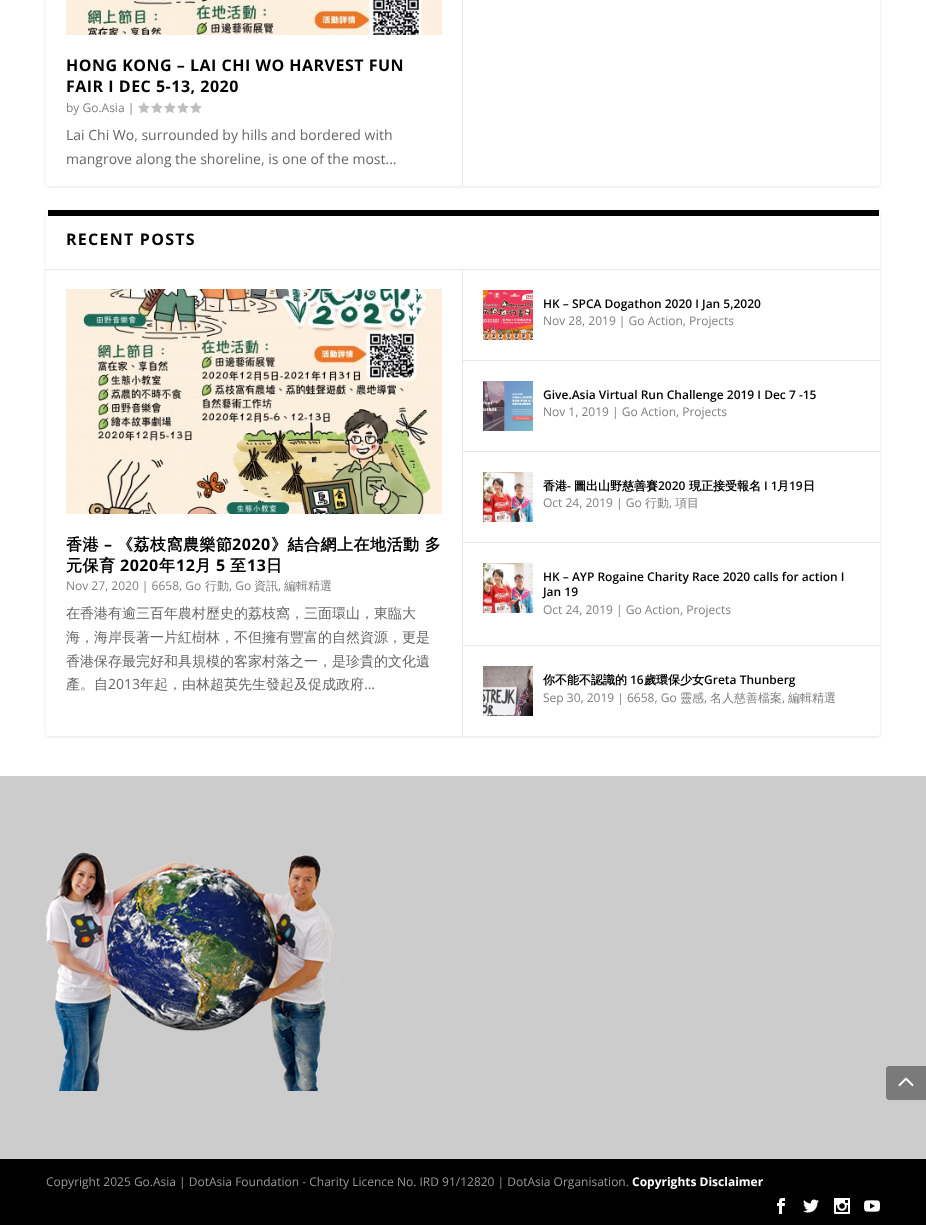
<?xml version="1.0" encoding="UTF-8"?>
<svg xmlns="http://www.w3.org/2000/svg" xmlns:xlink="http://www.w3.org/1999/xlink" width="926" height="1225">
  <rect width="100%" height="100%" fill="#ffffff" />
  <rect x="46" y="-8" width="834" height="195" rx="3" fill="#000000" fill-opacity="0.1" filter="blur(1.5px)" />
  <rect x="46" y="-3" width="834" height="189" rx="3" fill="#ffffff" />
  <rect x="462" width="1" height="186" fill="#e6e6e6" />
  <image x="66" y="0" width="376" height="35" xlink:href="image1.png" />
  <image x="138" y="102" width="12" height="12" xlink:href="image2.png" />
  <image x="151" y="102" width="12" height="12" xlink:href="image2.png" />
  <image x="164" y="102" width="12" height="12" xlink:href="image2.png" />
  <image x="177" y="102" width="12" height="12" xlink:href="image2.png" />
  <image x="190" y="102" width="12" height="12" xlink:href="image2.png" />
  <rect x="46" y="211" width="834" height="526" rx="3" fill="#000000" fill-opacity="0.1" filter="blur(1.5px)" />
  <rect x="46" y="210" width="834" height="526" rx="3" fill="#ffffff" />
  <rect x="48" y="210" width="831" height="6" fill="#000000" />
  <rect x="46" y="269" width="834" height="1" fill="#e6e6e6" />
  <rect x="462" y="270" width="1" height="466" fill="#e6e6e6" />
  <image x="66" y="289" width="376" height="225" xlink:href="image3.png" />
  <rect x="463" y="360" width="417" height="1" fill="#e6e6e6" />
  <image x="483" y="290" width="50" height="50" xlink:href="image4.png" />
  <rect x="463" y="451" width="417" height="1" fill="#e6e6e6" />
  <image x="483" y="381" width="50" height="50" xlink:href="image5.png" />
  <rect x="463" y="542" width="417" height="1" fill="#e6e6e6" />
  <image x="483" y="472" width="50" height="50" xlink:href="image6.png" />
  <rect x="463" y="645" width="417" height="1" fill="#e6e6e6" />
  <image x="483" y="563" width="50" height="50" xlink:href="image6.png" />
  <image x="483" y="666" width="50" height="50" xlink:href="image7.png" />
  <rect y="776" width="926" height="383" fill="#cccccc" />
  <image x="46" y="851" width="292" height="240" xlink:href="image8.png" />
  <rect y="1159" width="926" height="66" fill="#000000" />
  <image x="777" y="1198" width="8" height="16" xlink:href="image9.png" />
  <image x="803" y="1199" width="16" height="14" xlink:href="image10.png" />
  <image x="834" y="1198" width="16" height="16" xlink:href="image11.png" />
  <image x="864" y="1200" width="16" height="12" xlink:href="image12.png" />
  <path d="M 889 1066 h 37 v 34 h -37 c -1.5 0 -3 -1.5 -3 -3 v -28 c 0 -1.5 1.5 -3 3 -3 z" fill="#7a7a7a" />
  <image x="898" y="1077" width="16" height="10" xlink:href="image13.png" />
  <text x="66" y="71" style="font-family: Open Sans; font-size: 16px; font-weight: bold; letter-spacing: 0.5px; fill: #000000">HONG KONG – LAI CHI WO HARVEST FUN</text>
  <text x="66" y="92" style="font-family: Open Sans; font-size: 16px; font-weight: bold; letter-spacing: 0.5px; fill: #000000">FAIR I DEC 5-13, 2020</text>
  <text x="66" y="112" style="font-family: Open Sans; font-size: 12px; fill: #808080">by Go.Asia |</text>
  <text x="66" y="140" style="font-family: Open Sans; font-size: 14px; fill: #666666">Lai Chi Wo, surrounded by hills and bordered with</text>
  <text x="66" y="164" style="font-family: Open Sans; font-size: 14px; fill: #666666">mangrove along the shoreline, is one of the most...</text>
  <text x="66" y="245" style="font-family: Open Sans; font-size: 16px; font-weight: bold; letter-spacing: 1.25px; fill: #000000">RECENT POSTS</text>
  <text x="66" y="550" style="font-family: WenQuanYi Zen Hei; font-size: 16px; font-weight: bold; letter-spacing: 0.5px; fill: #000000">香港</text>
  <text x="104" y="550" style="font-family: Open Sans; font-size: 16px; font-weight: bold; letter-spacing: 0.5px; fill: #000000">–</text>
  <text x="117" y="550" style="font-family: WenQuanYi Zen Hei; font-size: 16px; font-weight: bold; letter-spacing: 0.5px; fill: #000000">《荔枝窩農樂節</text>
  <text x="232" y="550" style="font-family: Open Sans; font-size: 16px; font-weight: bold; letter-spacing: 0.5px; fill: #000000">2020</text>
  <text x="271" y="550" style="font-family: WenQuanYi Zen Hei; font-size: 16px; font-weight: bold; letter-spacing: 0.5px; fill: #000000">》結合網上在地活動 多</text>
  <text x="66" y="571" style="font-family: WenQuanYi Zen Hei; font-size: 16px; font-weight: bold; letter-spacing: 0.5px; fill: #000000">元保育</text>
  <text x="120" y="571" style="font-family: Open Sans; font-size: 16px; font-weight: bold; letter-spacing: 0.5px; fill: #000000">2020</text>
  <text x="159" y="571" style="font-family: WenQuanYi Zen Hei; font-size: 16px; font-weight: bold; letter-spacing: 0.5px; fill: #000000">年</text>
  <text x="176" y="571" style="font-family: Open Sans; font-size: 16px; font-weight: bold; letter-spacing: 0.5px; fill: #000000">12</text>
  <text x="195" y="571" style="font-family: WenQuanYi Zen Hei; font-size: 16px; font-weight: bold; letter-spacing: 0.5px; fill: #000000">月</text>
  <text x="216" y="571" style="font-family: Open Sans; font-size: 16px; font-weight: bold; letter-spacing: 0.5px; fill: #000000">5</text>
  <text x="230" y="571" style="font-family: WenQuanYi Zen Hei; font-size: 16px; font-weight: bold; letter-spacing: 0.5px; fill: #000000">至</text>
  <text x="247" y="571" style="font-family: Open Sans; font-size: 16px; font-weight: bold; letter-spacing: 0.5px; fill: #000000">13</text>
  <text x="266" y="571" style="font-family: WenQuanYi Zen Hei; font-size: 16px; font-weight: bold; letter-spacing: 0.5px; fill: #000000">日</text>
  <text x="66" y="590" style="font-family: Open Sans; font-size: 12px; fill: #808080">Nov 27, 2020 | 6658, Go</text>
  <text x="205" y="590" style="font-family: WenQuanYi Zen Hei; font-size: 12px; font-weight: 500; fill: #808080">行動</text>
  <text x="229" y="590" style="font-family: Open Sans; font-size: 12px; fill: #808080">, Go</text>
  <text x="254" y="590" style="font-family: WenQuanYi Zen Hei; font-size: 12px; font-weight: 500; fill: #808080">資訊</text>
  <text x="278" y="590" style="font-family: Open Sans; font-size: 12px; fill: #808080">,</text>
  <text x="284" y="590" style="font-family: WenQuanYi Zen Hei; font-size: 12px; font-weight: 500; fill: #808080">編輯精選</text>
  <text x="66" y="618" style="font-family: WenQuanYi Zen Hei; font-size: 14px; font-weight: 500; fill: #666666">在香港有逾三百年農村歷史的荔枝窩，三面環山，東臨大</text>
  <text x="66" y="642" style="font-family: WenQuanYi Zen Hei; font-size: 14px; font-weight: 500; fill: #666666">海，海岸長著一片紅樹林，不但擁有豐富的自然資源，更是</text>
  <text x="66" y="666" style="font-family: WenQuanYi Zen Hei; font-size: 14px; font-weight: 500; fill: #666666">香港保存最完好和具規模的客家村落之一，是珍貴的文化遺</text>
  <text x="66" y="689" style="font-family: WenQuanYi Zen Hei; font-size: 14px; font-weight: 500; fill: #666666">產。自</text>
  <text x="108" y="689" style="font-family: Open Sans; font-size: 14px; fill: #666666">2013</text>
  <text x="140" y="689" style="font-family: WenQuanYi Zen Hei; font-size: 14px; font-weight: 500; fill: #666666">年起，由林超英先生發起及促成政府</text>
  <text x="364" y="689" style="font-family: Open Sans; font-size: 14px; fill: #666666">...</text>
  <text x="543" y="308" style="font-family: Open Sans; font-size: 12px; font-weight: 600; fill: #000000">HK – SPCA Dogathon 2020 I Jan 5,2020</text>
  <text x="543" y="325" style="font-family: Open Sans; font-size: 12px; fill: #808080">Nov 28, 2019 | Go Action, Projects</text>
  <text x="543" y="399" style="font-family: Open Sans; font-size: 12px; font-weight: 600; fill: #000000">Give.Asia Virtual Run Challenge 2019 I Dec 7 -15</text>
  <text x="543" y="416" style="font-family: Open Sans; font-size: 12px; fill: #808080">Nov 1, 2019 | Go Action, Projects</text>
  <text x="543" y="490" style="font-family: WenQuanYi Zen Hei; font-size: 12px; font-weight: bold; fill: #000000">香港</text>
  <text x="567" y="490" style="font-family: Open Sans; font-size: 12px; font-weight: 600; fill: #000000">-</text>
  <text x="574" y="490" style="font-family: WenQuanYi Zen Hei; font-size: 12px; font-weight: bold; fill: #000000">圖出山野慈善賽</text>
  <text x="658" y="490" style="font-family: Open Sans; font-size: 12px; font-weight: 600; fill: #000000">2020</text>
  <text x="689" y="490" style="font-family: WenQuanYi Zen Hei; font-size: 12px; font-weight: bold; fill: #000000">現正接受報名</text>
  <text x="764" y="490" style="font-family: Open Sans; font-size: 12px; font-weight: 600; fill: #000000">I 1</text>
  <text x="777" y="490" style="font-family: WenQuanYi Zen Hei; font-size: 12px; font-weight: bold; fill: #000000">月</text>
  <text x="789" y="490" style="font-family: Open Sans; font-size: 12px; font-weight: 600; fill: #000000">19</text>
  <text x="803" y="490" style="font-family: WenQuanYi Zen Hei; font-size: 12px; font-weight: bold; fill: #000000">日</text>
  <text x="543" y="507" style="font-family: Open Sans; font-size: 12px; fill: #808080">Oct 24, 2019 | Go</text>
  <text x="645" y="507" style="font-family: WenQuanYi Zen Hei; font-size: 12px; font-weight: 500; fill: #808080">行動</text>
  <text x="669" y="507" style="font-family: Open Sans; font-size: 12px; fill: #808080">,</text>
  <text x="675" y="507" style="font-family: WenQuanYi Zen Hei; font-size: 12px; font-weight: 500; fill: #808080">項目</text>
  <text x="543" y="581" style="font-family: Open Sans; font-size: 12px; font-weight: 600; fill: #000000">HK – AYP Rogaine Charity Race 2020 calls for action I</text>
  <text x="543" y="596" style="font-family: Open Sans; font-size: 12px; font-weight: 600; fill: #000000">Jan 19</text>
  <text x="543" y="614" style="font-family: Open Sans; font-size: 12px; fill: #808080">Oct 24, 2019 | Go Action, Projects</text>
  <text x="543" y="684" style="font-family: WenQuanYi Zen Hei; font-size: 12px; font-weight: bold; fill: #000000">你不能不認識的</text>
  <text x="630" y="684" style="font-family: Open Sans; font-size: 12px; font-weight: 600; fill: #000000">16</text>
  <text x="644" y="684" style="font-family: WenQuanYi Zen Hei; font-size: 12px; font-weight: bold; fill: #000000">歲環保少女</text>
  <text x="704" y="684" style="font-family: Open Sans; font-size: 12px; font-weight: 600; fill: #000000">Greta Thunberg</text>
  <text x="543" y="702" style="font-family: Open Sans; font-size: 12px; fill: #808080">Sep 30, 2019 | 6658, Go</text>
  <text x="680" y="702" style="font-family: WenQuanYi Zen Hei; font-size: 12px; font-weight: 500; fill: #808080">靈感</text>
  <text x="704" y="702" style="font-family: Open Sans; font-size: 12px; fill: #808080">,</text>
  <text x="710" y="702" style="font-family: WenQuanYi Zen Hei; font-size: 12px; font-weight: 500; fill: #808080">名人慈善檔案</text>
  <text x="782" y="702" style="font-family: Open Sans; font-size: 12px; fill: #808080">,</text>
  <text x="788" y="702" style="font-family: WenQuanYi Zen Hei; font-size: 12px; font-weight: 500; fill: #808080">編輯精選</text>
  <text x="46" y="1186" style="font-family: Open Sans; font-size: 12px; fill: #999999">Copyright 2025 Go.Asia | DotAsia Foundation - Charity Licence No. IRD 91/12820 | DotAsia Organisation.</text>
  <text x="632" y="1186" style="font-family: Open Sans; font-size: 12px; font-weight: bold; fill: #ffffff">Copyrights Disclaimer</text>
</svg>
